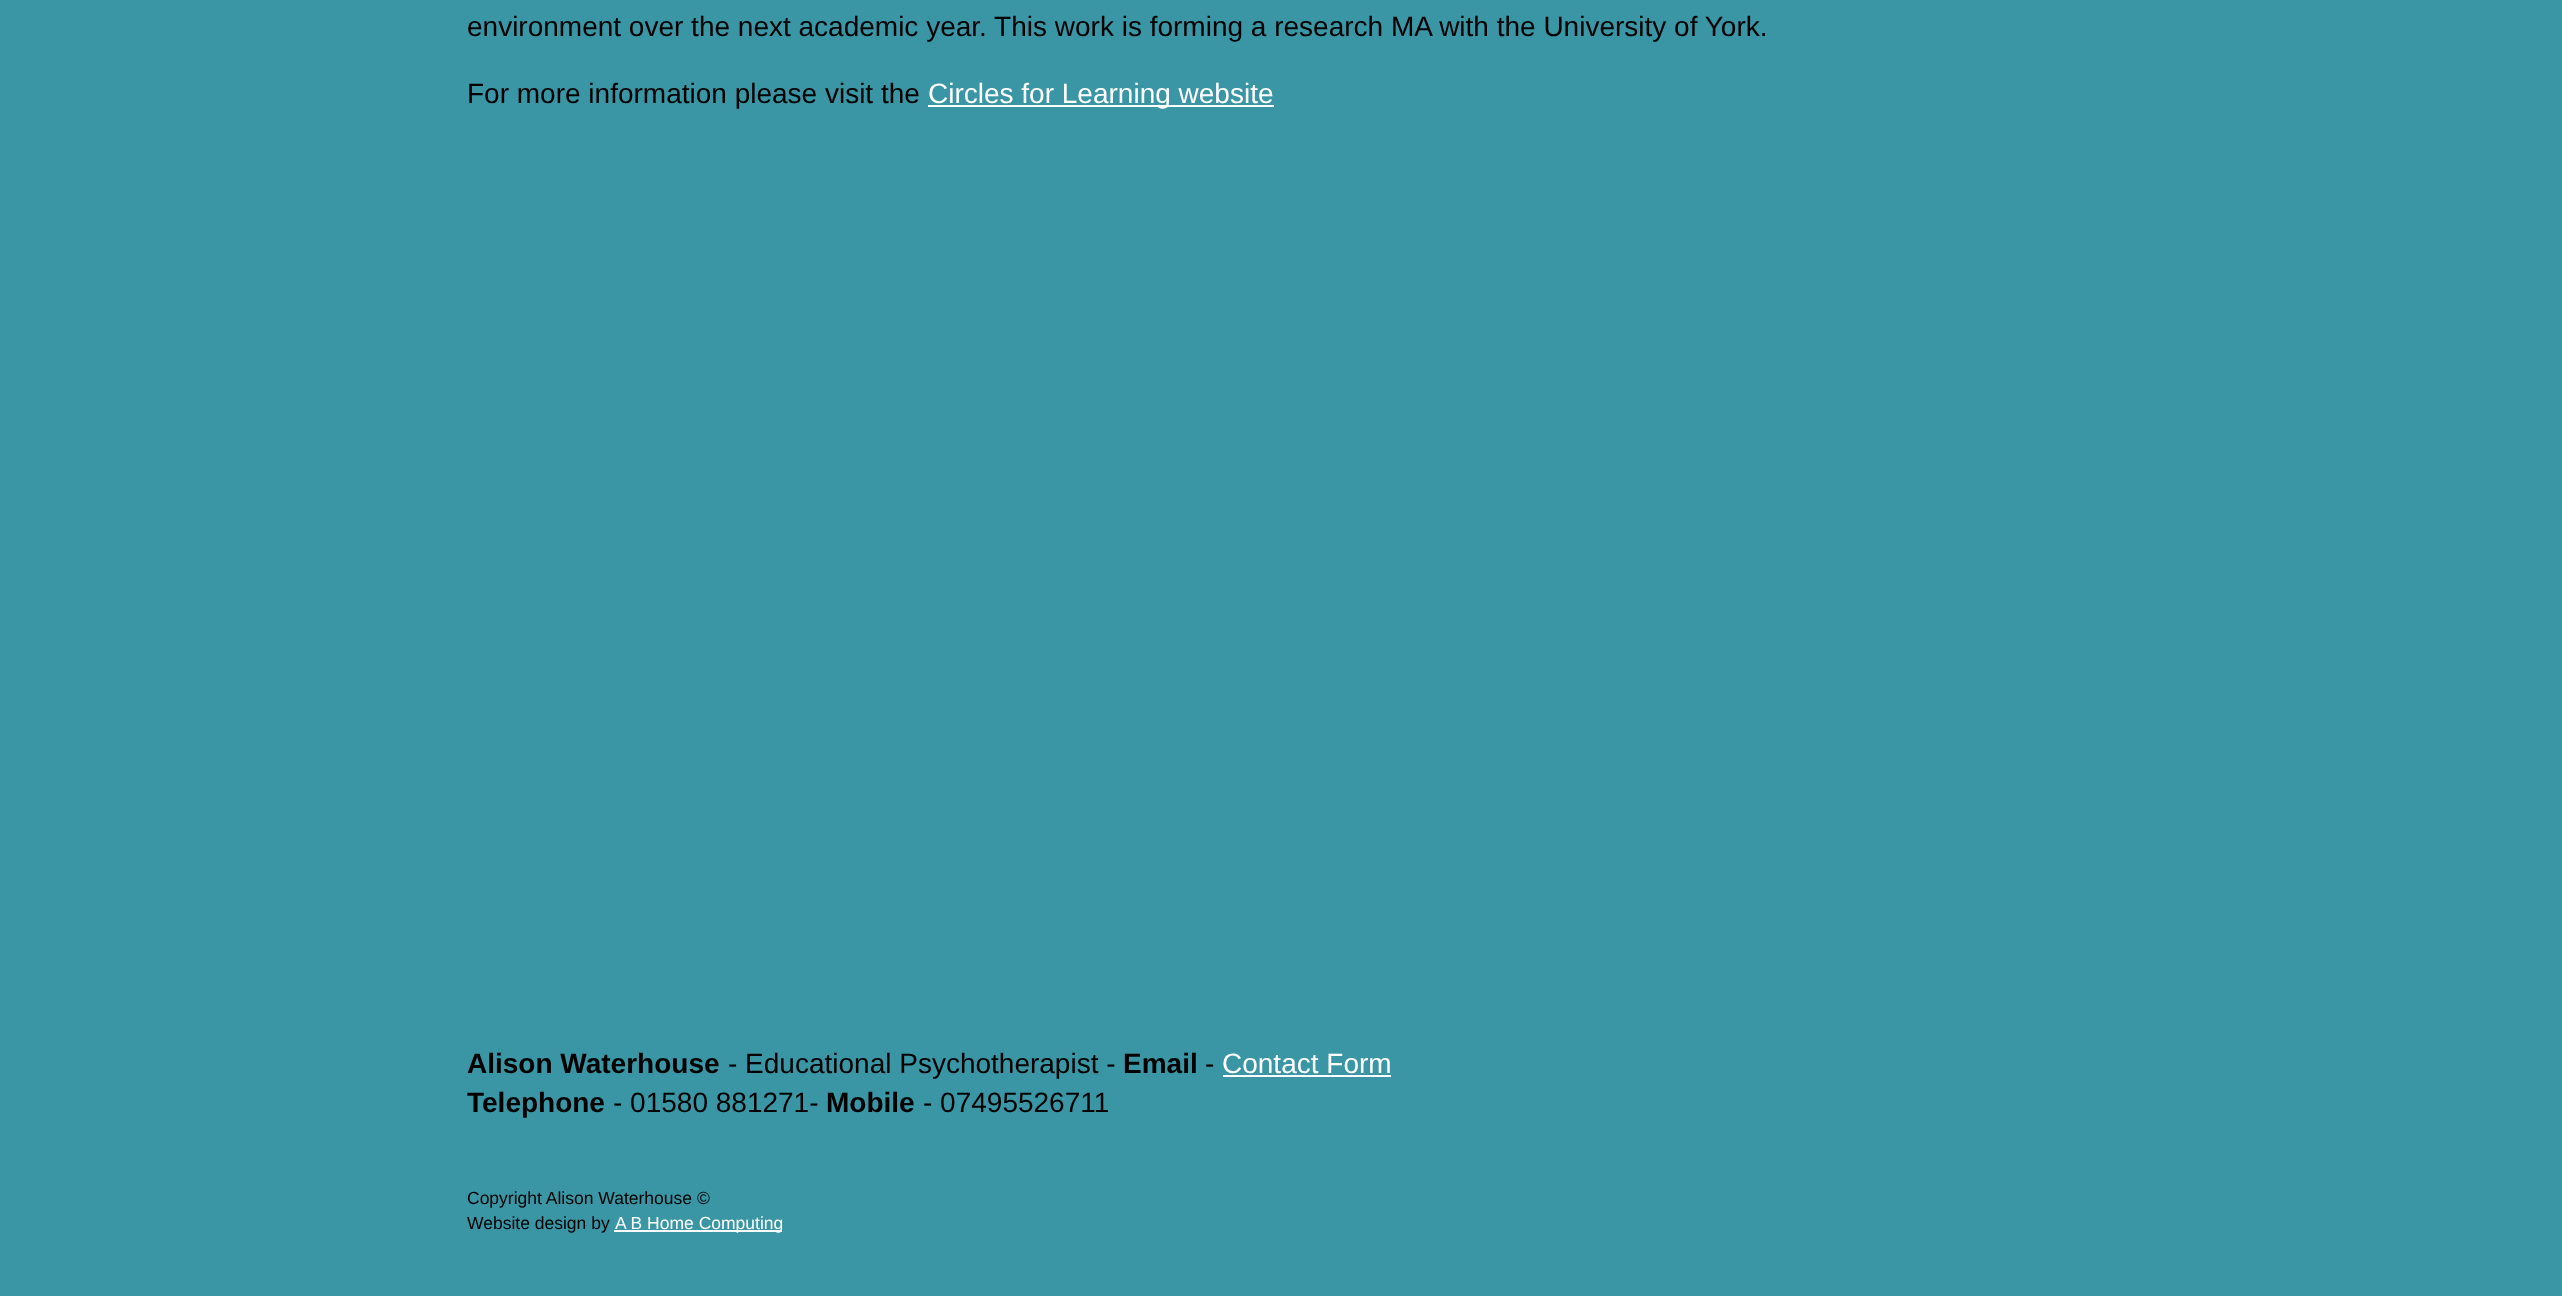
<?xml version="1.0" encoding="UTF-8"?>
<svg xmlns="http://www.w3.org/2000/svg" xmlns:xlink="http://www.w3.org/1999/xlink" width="2562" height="1296">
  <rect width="100%" height="100%" fill="#3a95a4" />
  <rect x="928" y="105" width="346" height="2" fill="#ffffff" />
  <rect x="1223" y="1075" width="168" height="2" fill="#ffffff" />
  <rect x="614" y="1230" width="168" height="2" fill="#ffffff" />
  <text x="467" y="36" style="font-family: Liberation Sans; font-size: 28px; fill: #000000">environment over the next academic year. This work is forming a research MA with the University of York.</text>
  <text x="467" y="103" style="font-family: Liberation Sans; font-size: 28px; fill: #000000">For more information please visit the</text>
  <text x="928" y="103" style="font-family: Liberation Sans; font-size: 28px; fill: #ffffff">Circles for Learning website</text>
  <text x="467" y="1073" style="font-family: Liberation Sans; font-size: 28px; font-weight: bold; fill: #000000">Alison Waterhouse</text>
  <text x="728" y="1073" style="font-family: Liberation Sans; font-size: 28px; fill: #000000">- Educational Psychotherapist -</text>
  <text x="1123" y="1073" style="font-family: Liberation Sans; font-size: 28px; font-weight: bold; fill: #000000">Email</text>
  <text x="1205" y="1073" style="font-family: Liberation Sans; font-size: 28px; fill: #000000">-</text>
  <text x="1222" y="1073" style="font-family: Liberation Sans; font-size: 28px; fill: #ffffff">Contact Form</text>
  <text x="467" y="1112" style="font-family: Liberation Sans; font-size: 28px; font-weight: bold; fill: #000000">Telephone</text>
  <text x="613" y="1112" style="font-family: Liberation Sans; font-size: 28px; fill: #000000">- 01580 881271-</text>
  <text x="826" y="1112" style="font-family: Liberation Sans; font-size: 28px; font-weight: bold; fill: #000000">Mobile</text>
  <text x="923" y="1112" style="font-family: Liberation Sans; font-size: 28px; fill: #000000">- 07495526711</text>
  <text x="467" y="1204" style="font-family: Liberation Sans; font-size: 17.5px; fill: #000000">Copyright Alison Waterhouse ©</text>
  <text x="467" y="1229" style="font-family: Liberation Sans; font-size: 17.5px; fill: #000000">Website design by</text>
  <text x="615" y="1229" style="font-family: Liberation Sans; font-size: 17.5px; fill: #ffffff">A B Home Computing</text>
</svg>
